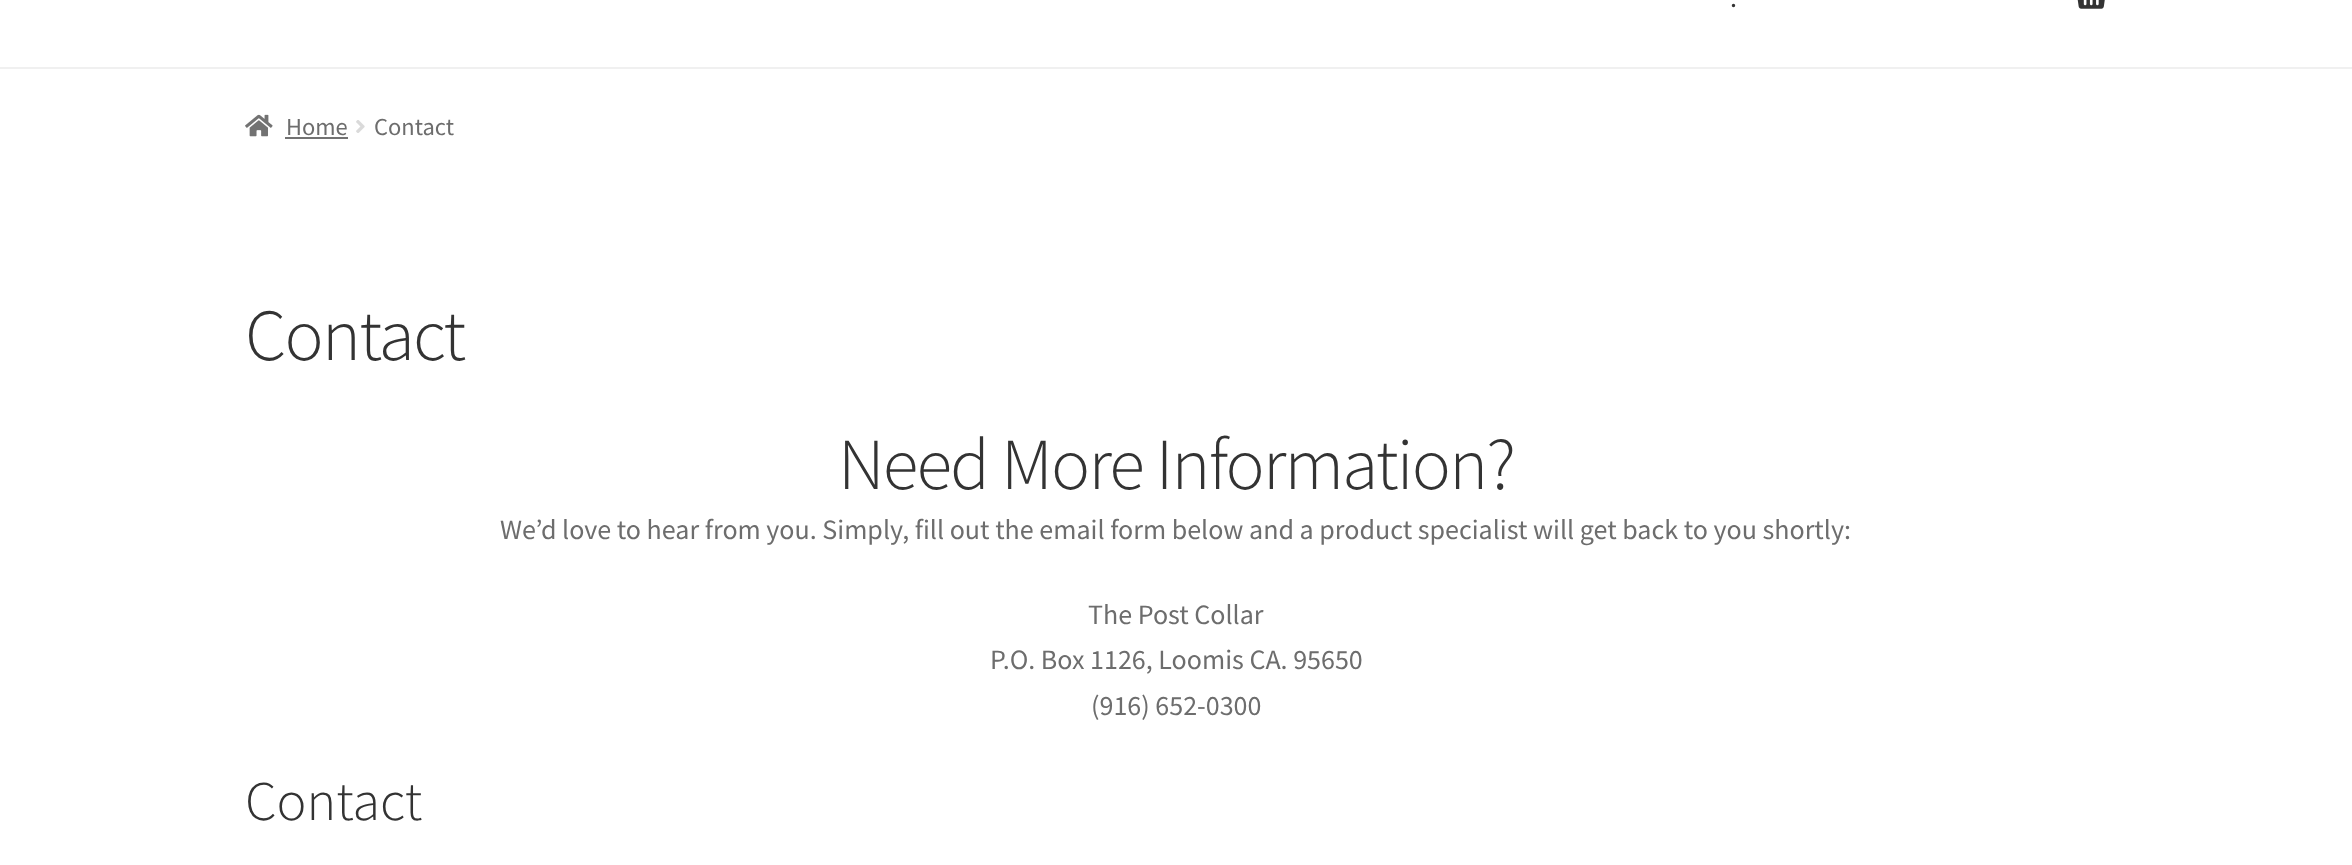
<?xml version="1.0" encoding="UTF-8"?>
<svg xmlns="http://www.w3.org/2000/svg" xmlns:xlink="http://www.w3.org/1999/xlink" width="2352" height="865">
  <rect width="100%" height="100%" fill="#ffffff" />
  <rect y="67" width="2352" height="2" fill="#f0f0f0" />
  <image x="2077" y="0" width="28" height="9" xlink:href="image1.png" />
  <image x="245" y="114" width="28" height="23" xlink:href="image2.png" />
  <rect x="285" y="137" width="63" height="2" fill="#727272" />
  <image x="356" y="120" width="9" height="13" xlink:href="image3.png" />
  <text x="1730" y="7" style="font-family: Source Sans Pro; font-size: 28px; fill: #333333">.</text>
  <text x="286" y="135" style="font-family: Source Sans Pro; font-size: 24.5px; fill: #6d6d6d">Home</text>
  <text x="374" y="135" style="font-family: Source Sans Pro; font-size: 24.5px; fill: #6d6d6d">Contact</text>
  <text x="245" y="360" style="font-family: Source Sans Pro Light; font-size: 73.25px; font-weight: 300; letter-spacing: -1.75px; fill: #333333">Contact</text>
  <text x="838" y="489" style="font-family: Source Sans Pro Light; font-size: 73.25px; font-weight: 300; letter-spacing: -1.75px; fill: #333333">Need More Information?</text>
  <text x="500" y="539" style="font-family: Source Sans Pro; font-size: 28px; fill: #6d6d6d">We’d love to hear from you. Simply, fill out the email form below and a product specialist will get back to you shortly:</text>
  <text x="1088" y="624" style="font-family: Source Sans Pro; font-size: 28px; fill: #6d6d6d">The Post Collar</text>
  <text x="990" y="669" style="font-family: Source Sans Pro; font-size: 28px; fill: #6d6d6d">P.O. Box 1126, Loomis CA. 95650</text>
  <text x="1091" y="715" style="font-family: Source Sans Pro; font-size: 28px; fill: #6d6d6d">(916) 652-0300</text>
  <text x="245" y="820" style="font-family: Source Sans Pro Light; font-size: 56px; font-weight: 300; fill: #333333">Contact</text>
</svg>
